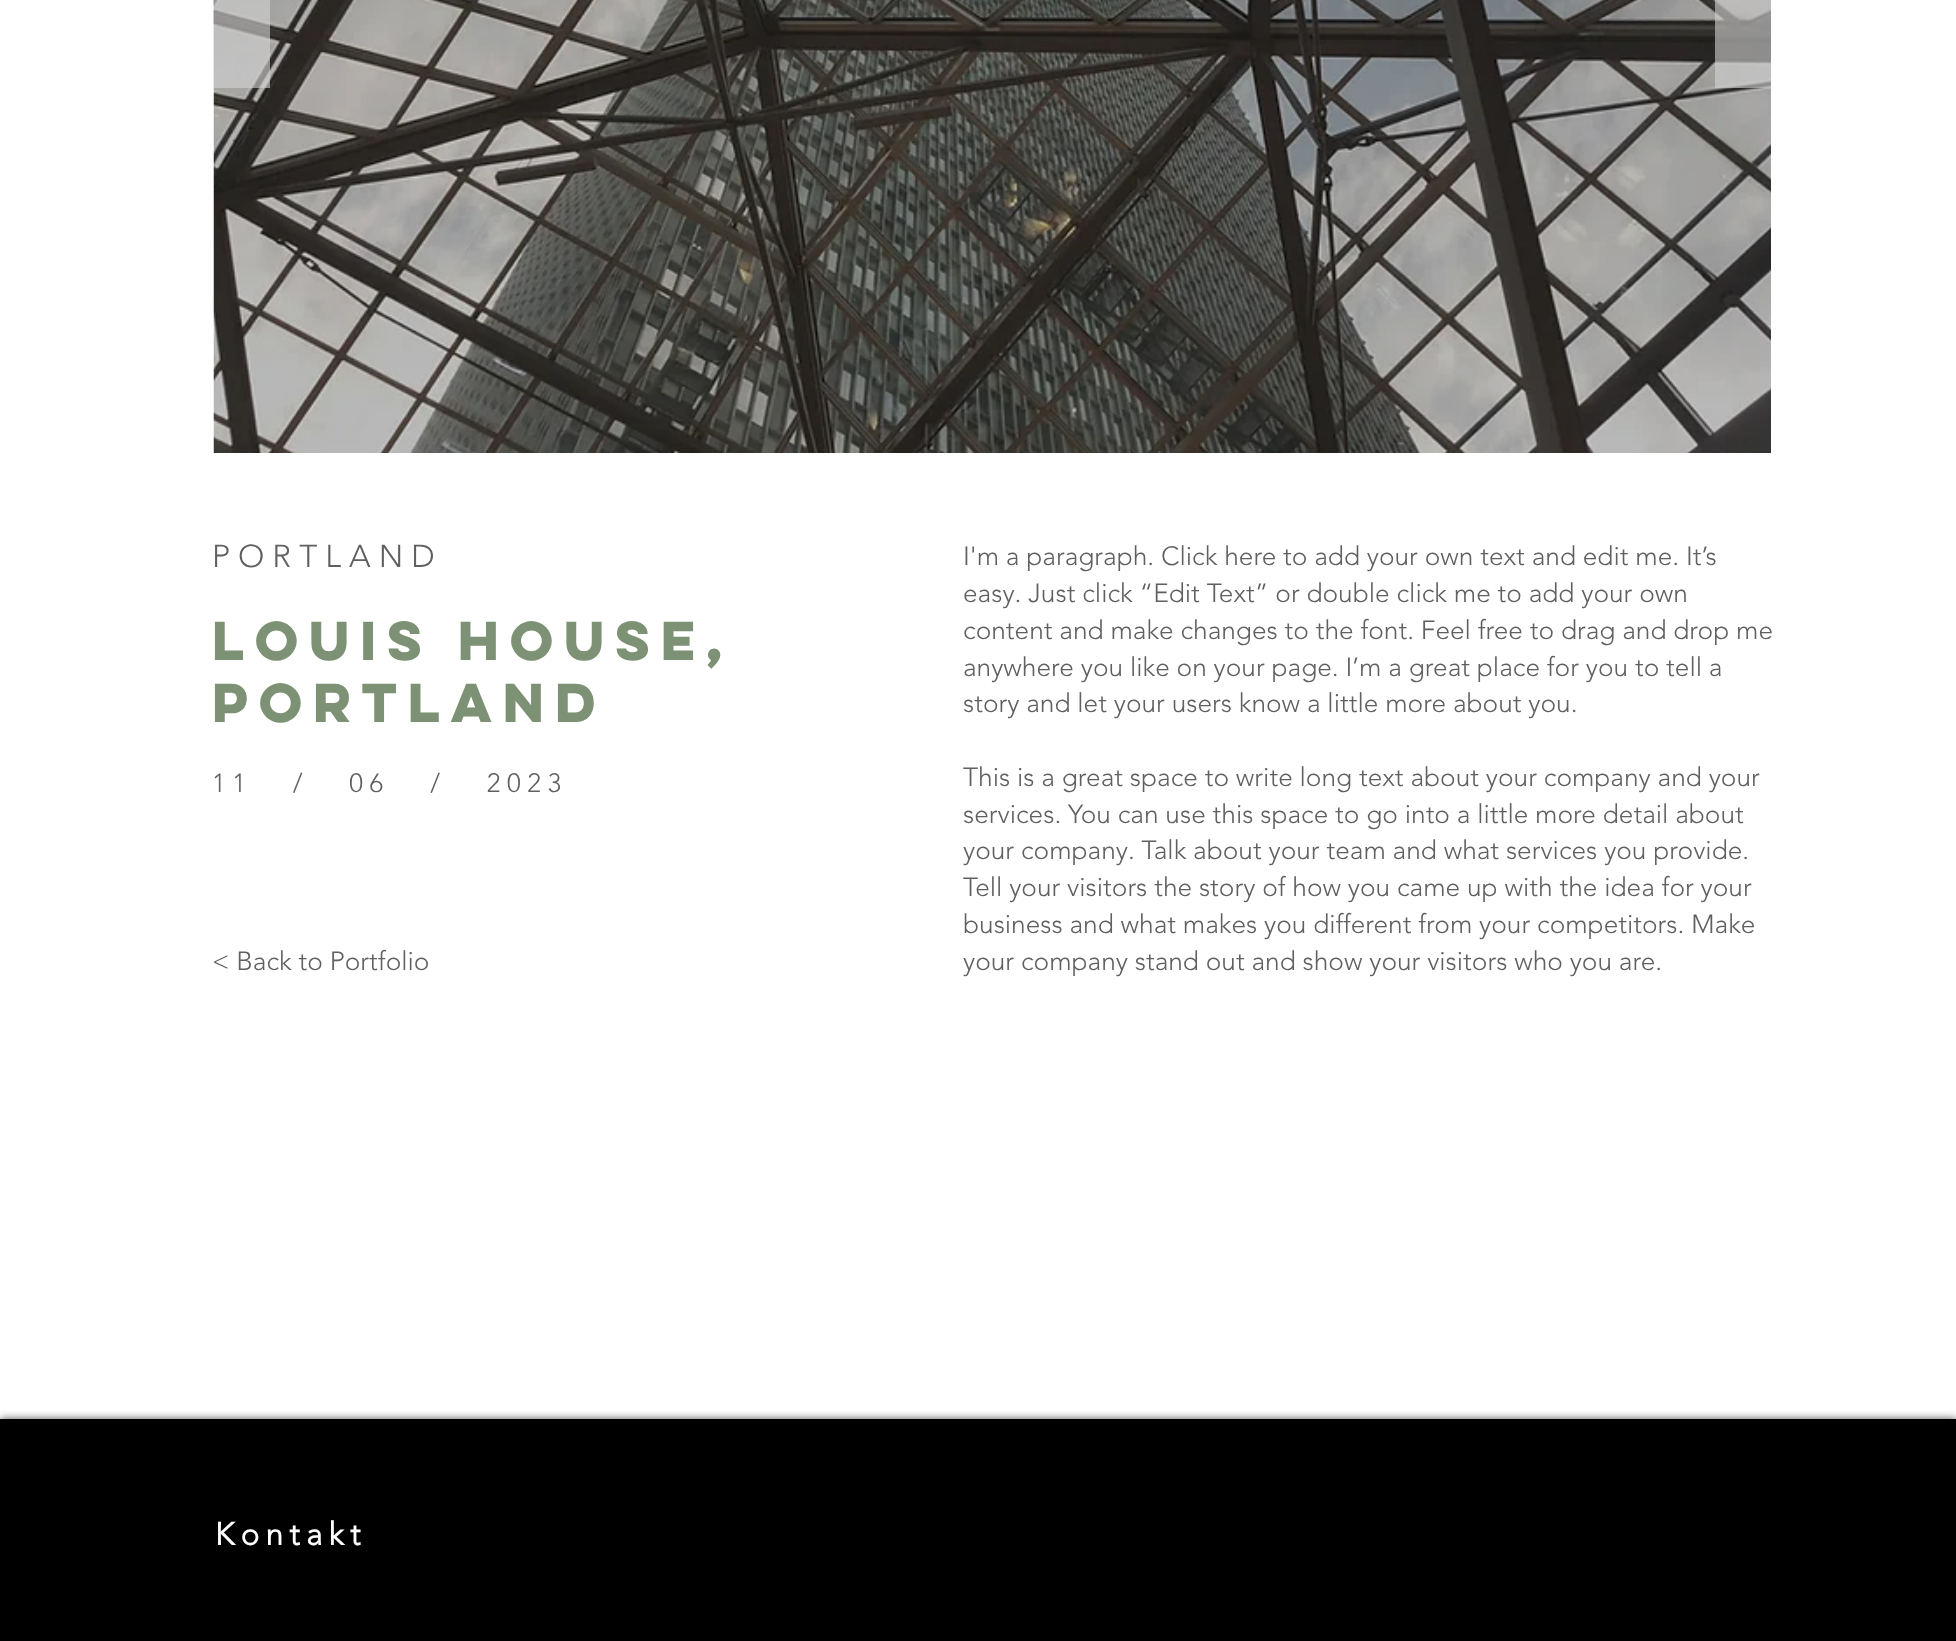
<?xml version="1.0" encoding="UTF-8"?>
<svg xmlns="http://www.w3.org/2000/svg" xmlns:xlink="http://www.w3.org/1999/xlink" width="1956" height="1641">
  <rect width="100%" height="100%" fill="#ffffff" />
  <image x="213" y="0" width="1558" height="453" xlink:href="image1.png" />
  <rect x="214" width="56" height="88" fill="#d4d4d4" fill-opacity="0.6" />
  <rect x="1715" width="56" height="88" fill="#d4d4d4" fill-opacity="0.6" />
  <rect y="1419" width="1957" height="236" fill="#000000" fill-opacity="0.7" filter="blur(4.5px)" />
  <rect y="1419" width="1956" height="222" fill="#000000" />
  <text x="212" y="567" style="font-family: 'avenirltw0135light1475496'; font-size: 31.5px; font-weight: 300; letter-spacing: 8px; fill: #606060">PORTLAND</text>
  <text x="963" y="565" style="font-family: 'avenirltw0135light1475496'; font-size: 26.25px; font-weight: 300; fill: #606060">I'm a paragraph. Click here to add your own text and edit me. It’s</text>
  <text x="963" y="602" style="font-family: 'avenirltw0135light1475496'; font-size: 26.25px; font-weight: 300; fill: #606060">easy. Just click “Edit Text” or double click me to add your own</text>
  <text x="963" y="639" style="font-family: 'avenirltw0135light1475496'; font-size: 26.25px; font-weight: 300; fill: #606060">content and make changes to the font. Feel free to drag and drop me</text>
  <text x="963" y="676" style="font-family: 'avenirltw0135light1475496'; font-size: 26.25px; font-weight: 300; fill: #606060">anywhere you like on your page. I’m a great place for you to tell a</text>
  <text x="963" y="712" style="font-family: 'avenirltw0135light1475496'; font-size: 26.25px; font-weight: 300; fill: #606060">story and let your users know a little more about you.</text>
  <text x="963" y="786" style="font-family: 'avenirltw0135light1475496'; font-size: 26.25px; font-weight: 300; fill: #606060">This is a great space to write long text about your company and your</text>
  <text x="963" y="823" style="font-family: 'avenirltw0135light1475496'; font-size: 26.25px; font-weight: 300; fill: #606060">services. You can use this space to go into a little more detail about</text>
  <text x="963" y="859" style="font-family: 'avenirltw0135light1475496'; font-size: 26.25px; font-weight: 300; fill: #606060">your company. Talk about your team and what services you provide.</text>
  <text x="963" y="896" style="font-family: 'avenirltw0135light1475496'; font-size: 26.25px; font-weight: 300; fill: #606060">Tell your visitors the story of how you came up with the idea for your</text>
  <text x="963" y="933" style="font-family: 'avenirltw0135light1475496'; font-size: 26.25px; font-weight: 300; fill: #606060">business and what makes you different from your competitors. Make</text>
  <text x="963" y="970" style="font-family: 'avenirltw0135light1475496'; font-size: 26.25px; font-weight: 300; fill: #606060">your company stand out and show your visitors who you are.</text>
  <text x="212" y="660" style="font-family: 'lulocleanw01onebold'; font-size: 49px; font-weight: bold; fill: #7d9174">LOUIS HOUSE,</text>
  <text x="212" y="722" style="font-family: 'lulocleanw01onebold'; font-size: 49px; font-weight: bold; fill: #7d9174">PORTLAND</text>
  <text x="212" y="792" style="font-family: 'avenirltw0135light1475496'; font-size: 26.25px; font-weight: 300; letter-spacing: 6.6px; fill: #606060" xml:space="preserve">11   /   06   /   2023</text>
  <text x="212" y="970" style="font-family: 'avenirltw0135light1475496'; font-size: 26.25px; font-weight: 300; fill: #606060">&lt; Back to Portfolio</text>
  <text x="215" y="1545" style="font-family: 'avenirltw0135light1475496'; font-size: 31.5px; font-weight: bold; letter-spacing: 6.25px; fill: #ffffff">Kontakt</text>
</svg>
